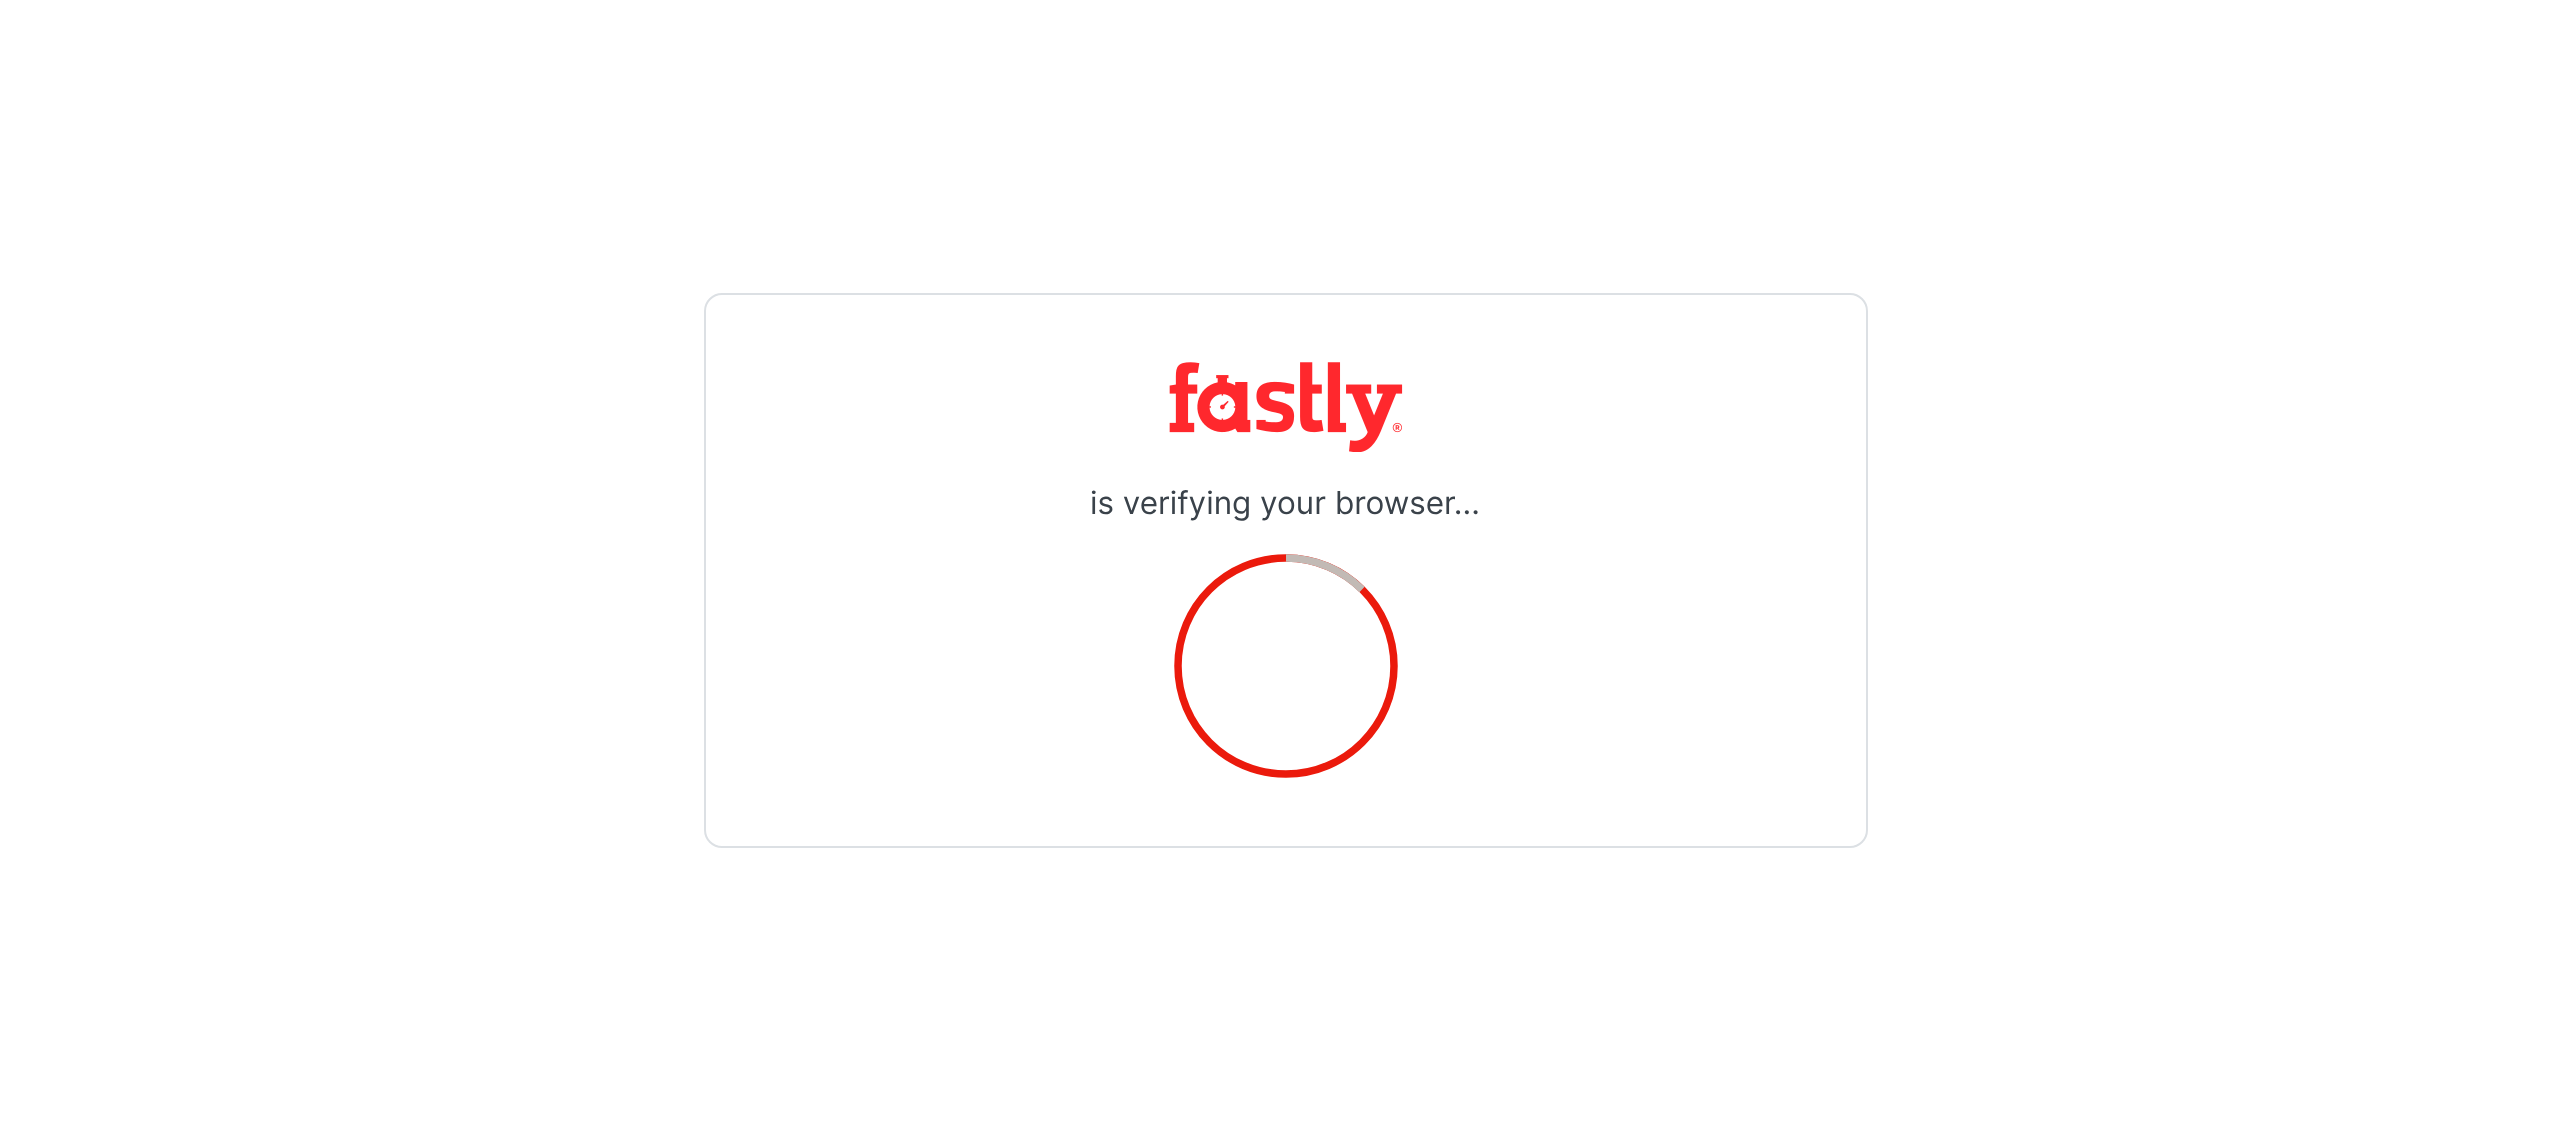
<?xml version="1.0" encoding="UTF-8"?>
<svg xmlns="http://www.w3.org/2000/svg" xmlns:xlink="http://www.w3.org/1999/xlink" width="2569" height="1138">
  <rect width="100%" height="100%" fill="#ffffff" />
  <rect x="705" y="294" width="1162" height="553" rx="17" fill="none" stroke="#dce0e4" stroke-width="2" />
  <image x="1169" y="362" width="234" height="90" xlink:href="image1.png" />
  <path d="M 1178 666 c 0 -59.5 48 -108 108 -108 c 59.5 0 108 48.5 108 108 c 0 59.5 -48.5 108 -108 108 c -60 0 -108 -48.5 -108 -108 z" fill="none" stroke="#eb1a0c" stroke-width="7.5" />
  <path d="M 1362 589.5 c -20 -20 -47.5 -31.5 -76 -31.5" fill="none" stroke="#c2bab5" stroke-width="7.5" />
  <text x="1090" y="514" style="font-family: Inter; font-size: 31.5px; fill: #3a424a">is verifying your browser...</text>
</svg>
